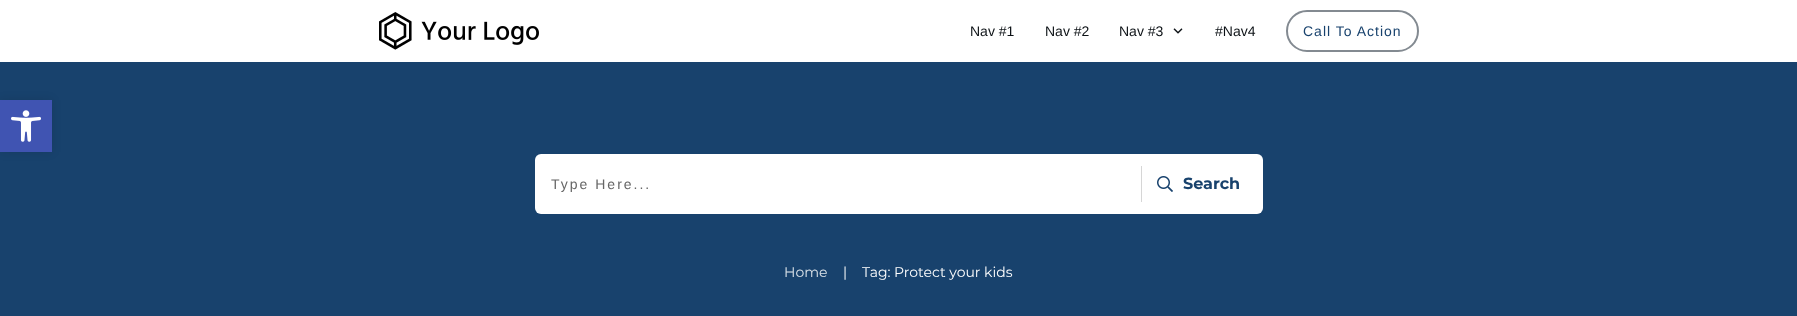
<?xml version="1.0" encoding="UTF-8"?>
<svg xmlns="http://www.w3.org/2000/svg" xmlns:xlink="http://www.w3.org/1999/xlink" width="1797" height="316">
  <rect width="100%" height="100%" fill="#ffffff" />
  <rect y="62" width="1797" height="254" fill="#18426d" />
  <rect y="100" width="52" height="52" fill="#000000" fill-opacity="0.1" filter="blur(5px)" />
  <rect y="100" width="52" height="52" fill="#4054b2" />
  <image x="11" y="110" width="30" height="32" xlink:href="image1.png" />
  <image x="379" y="12" width="160" height="38" xlink:href="image2.png" />
  <image x="1173" y="28" width="10" height="6" xlink:href="image3.png" />
  <rect x="1287" y="11" width="131" height="40" rx="20" fill="none" stroke="#838a91" stroke-width="2" />
  <rect x="535" y="154" width="728" height="60" rx="6" fill="#ffffff" />
  <rect x="1141" y="166" width="1" height="36" fill="#d6d6d6" />
  <image x="1157" y="176" width="16" height="16" xlink:href="image4.png" />
  <text x="970" y="36" style="font-family: Liberation Sans; font-size: 14px; fill: #0c1115">Nav #1</text>
  <text x="1045" y="36" style="font-family: Liberation Sans; font-size: 14px; fill: #0c1115">Nav #2</text>
  <text x="1119" y="36" style="font-family: Liberation Sans; font-size: 14px; fill: #0c1115">Nav #3</text>
  <text x="1215" y="36" style="font-family: Liberation Sans; font-size: 14px; fill: #0c1115">#Nav4</text>
  <text x="1303" y="36" style="font-family: Liberation Sans; font-size: 14px; letter-spacing: 1px; fill: #18426d">Call To Action</text>
  <text x="551" y="189" style="font-family: Liberation Sans; font-size: 14px; letter-spacing: 2px; fill: #666666">Type Here...</text>
  <text x="1183" y="189" style="font-family: Montserrat; font-size: 16px; font-weight: bold; fill: #18426d">Search</text>
  <text x="784" y="277" style="font-family: Montserrat; font-size: 14px; fill: #dce3e9">Home</text>
  <text x="843" y="277" style="font-family: Montserrat; font-size: 14px; fill: #ffffff">|</text>
  <text x="862" y="277" style="font-family: Montserrat; font-size: 14px; fill: #ffffff">Tag: Protect your kids</text>
</svg>
